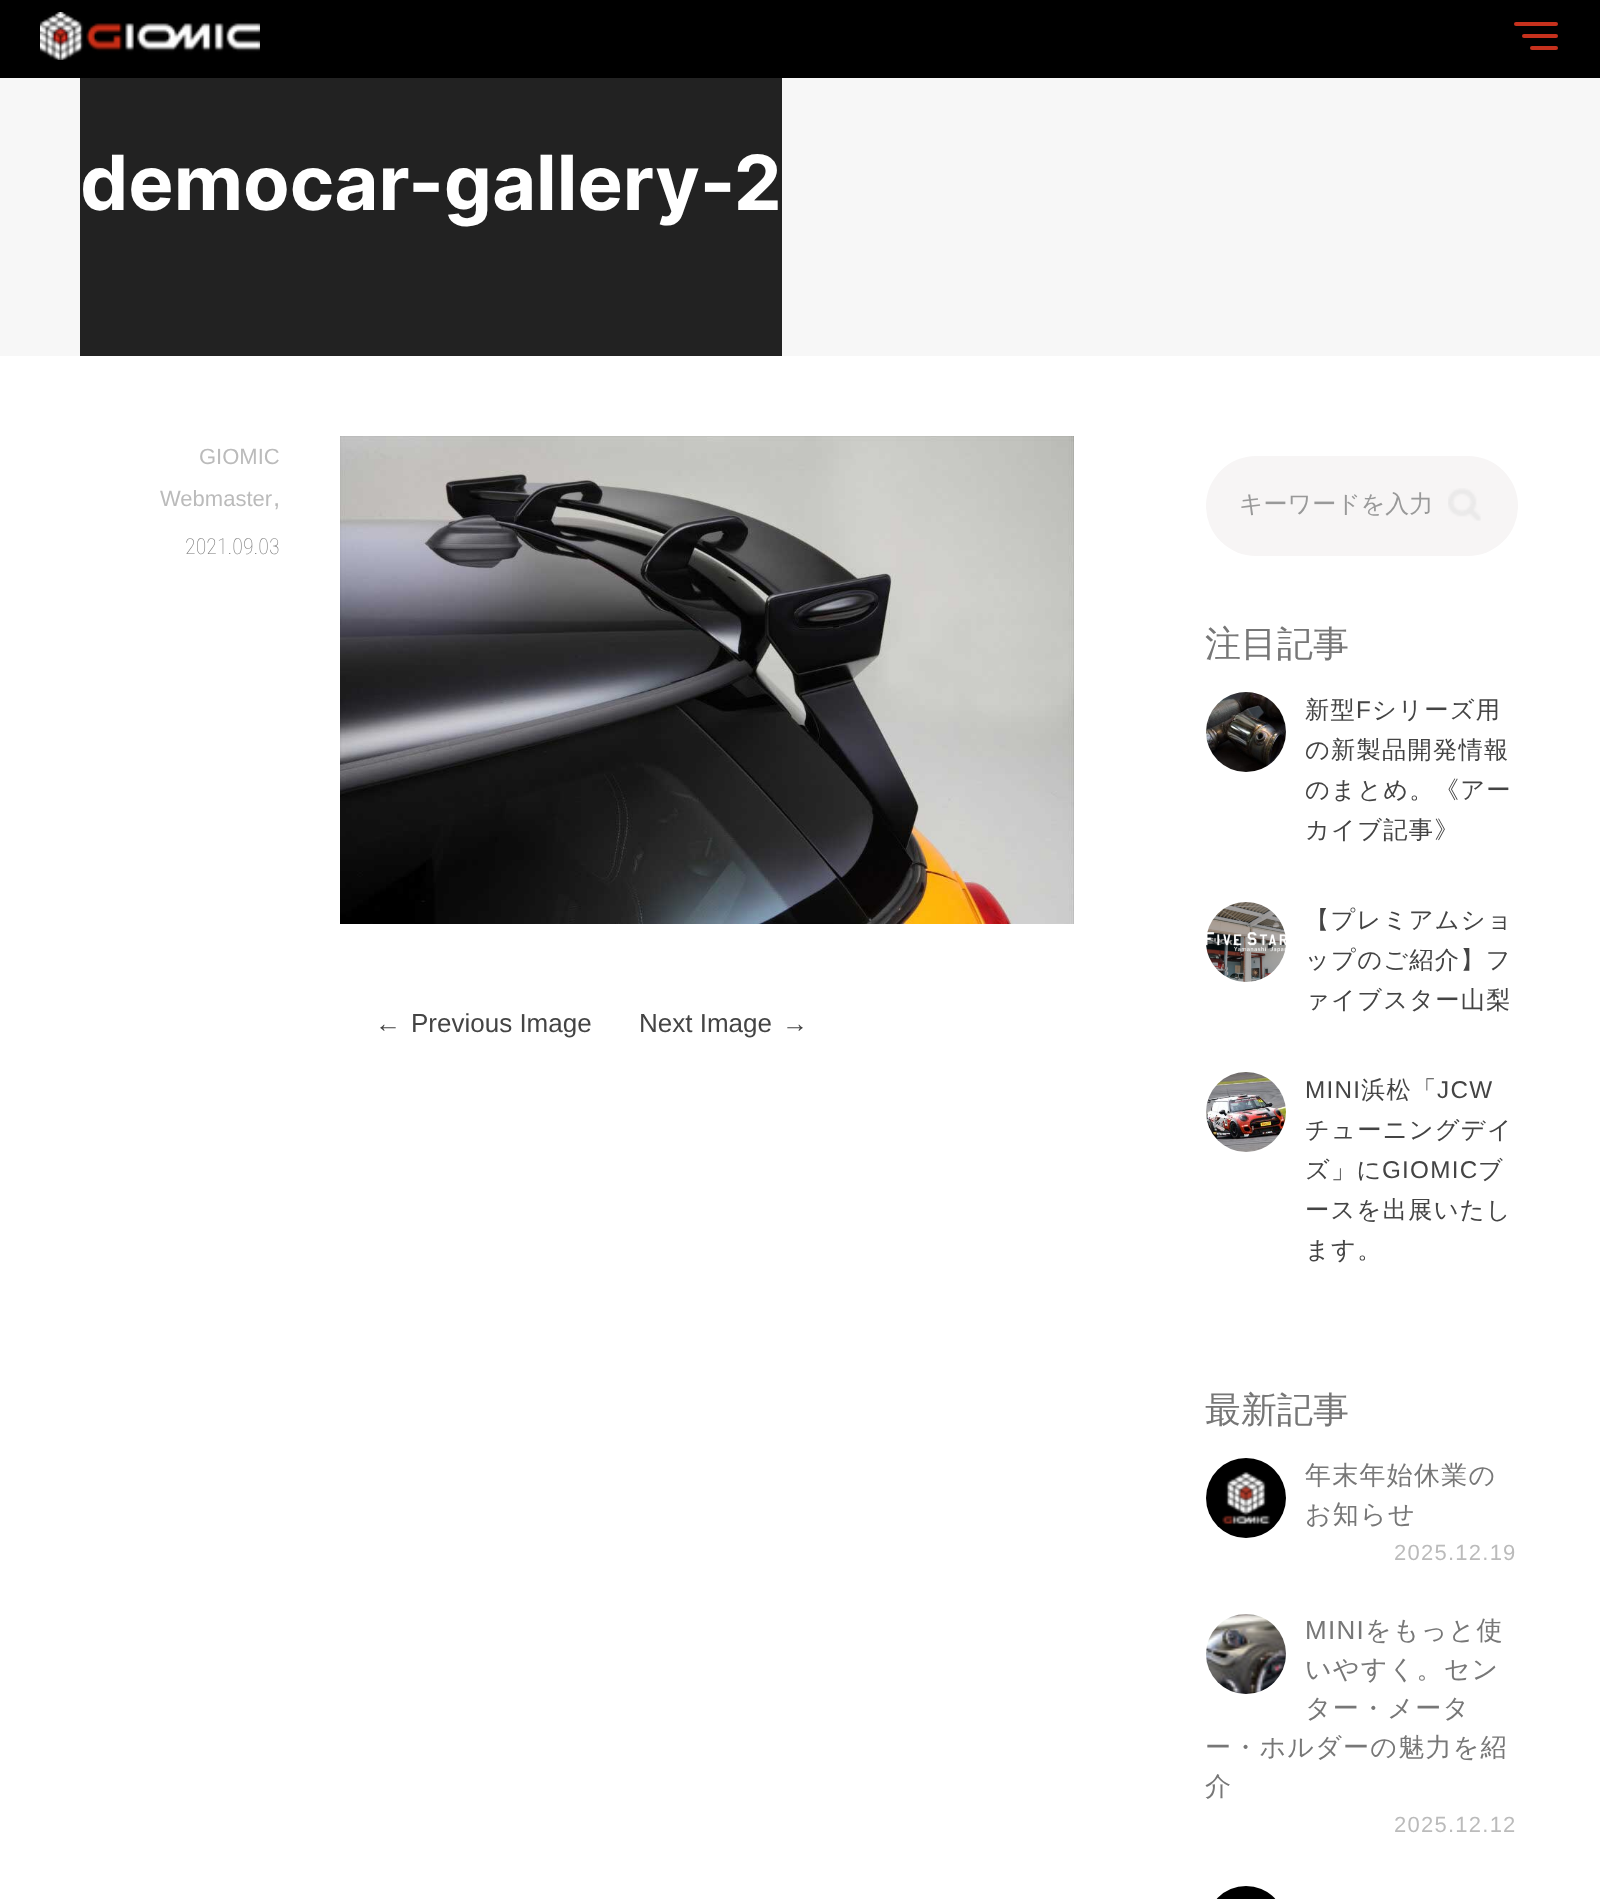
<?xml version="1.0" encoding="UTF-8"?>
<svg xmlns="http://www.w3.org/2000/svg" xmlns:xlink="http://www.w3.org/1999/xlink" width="1600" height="1899">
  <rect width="100%" height="100%" fill="#ffffff" />
  <rect width="1600" height="78" fill="#000000" />
  <image x="40" y="12" width="220" height="48" xlink:href="image1.png" />
  <rect x="1522" y="34" width="36" height="4" rx="2" fill="#c6311d" />
  <rect x="1514" y="22" width="44" height="4" rx="2" fill="#c6311d" />
  <rect x="1530" y="46" width="28" height="4" rx="2" fill="#c6311d" />
  <rect y="78" width="1600" height="278" fill="#f7f7f7" />
  <rect x="80" y="78" width="702" height="278" fill="#222222" />
  <image x="340" y="436" width="734" height="488" xlink:href="image2.png" />
  <rect x="1206" y="456" width="312" height="100" rx="50" fill="#f7f5f5" />
  <image x="1448" y="488" width="33" height="33" xlink:href="image3.png" />
  <image x="1206" y="692" width="80" height="80" xlink:href="image4.png" />
  <image x="1206" y="902" width="80" height="80" xlink:href="image5.png" />
  <image x="1206" y="1072" width="80" height="80" xlink:href="image6.png" />
  <image x="1206" y="1458" width="80" height="80" xlink:href="image7.png" />
  <image x="1206" y="1614" width="80" height="80" xlink:href="image8.png" />
  <image x="1216" y="1886" width="60" height="13" xlink:href="image9.png" />
  <text x="80" y="210" style="font-family: Inter; font-size: 76px; font-weight: bold; fill: #ffffff">democar-gallery-2</text>
  <text x="199" y="464" style="font-family: Liberation Sans; font-size: 22px; fill: #bbbbbb">GIOMIC</text>
  <text x="160" y="506" style="font-family: Liberation Sans; font-size: 22px; fill: #bbbbbb">Webmaster</text>
  <text x="273" y="506" style="font-family: Liberation Sans; font-size: 26px; fill: #bbbbbb">,</text>
  <text x="185" y="554" style="font-family: Roboto Condensed; font-size: 22px; font-weight: 100; fill: #777777">2021.09.03</text>
  <text x="375" y="1032" style="font-family: Liberation Sans; font-size: 26px; fill: #444444">←</text>
  <text x="411" y="1032" style="font-family: Liberation Sans; font-size: 26px; fill: #444444">Previous Image</text>
  <text x="639" y="1032" style="font-family: Liberation Sans; font-size: 26px; fill: #444444">Next Image</text>
  <text x="782" y="1032" style="font-family: Liberation Sans; font-size: 26px; fill: #444444">→</text>
  <text x="1239" y="512" style="font-family: WenQuanYi Zen Hei; font-size: 24px; font-weight: 500; fill: #999999">キーワードを入力</text>
  <text x="1205" y="656" style="font-family: WenQuanYi Zen Hei; font-size: 36px; font-weight: 500; fill: #777777">注目記事</text>
  <text x="1305" y="718" style="font-family: WenQuanYi Zen Hei; font-size: 24.25px; font-weight: 500; letter-spacing: 1.25px; fill: #444444">新型</text>
  <text x="1356" y="718" style="font-family: Liberation Sans; font-size: 24.25px; letter-spacing: 1.25px; fill: #444444">F</text>
  <text x="1372" y="718" style="font-family: WenQuanYi Zen Hei; font-size: 24.25px; font-weight: 500; letter-spacing: 1.25px; fill: #444444">シリーズ用</text>
  <text x="1305" y="758" style="font-family: WenQuanYi Zen Hei; font-size: 24.25px; font-weight: 500; letter-spacing: 1.25px; fill: #444444">の新製品開発情報</text>
  <text x="1305" y="798" style="font-family: WenQuanYi Zen Hei; font-size: 24.25px; font-weight: 500; letter-spacing: 1.25px; fill: #444444">のまとめ。《アー</text>
  <text x="1305" y="838" style="font-family: WenQuanYi Zen Hei; font-size: 24.25px; font-weight: 500; letter-spacing: 1.25px; fill: #444444">カイブ記事》</text>
  <text x="1305" y="928" style="font-family: WenQuanYi Zen Hei; font-size: 24.25px; font-weight: 500; letter-spacing: 1.25px; fill: #444444">【プレミアムショ</text>
  <text x="1305" y="968" style="font-family: WenQuanYi Zen Hei; font-size: 24.25px; font-weight: 500; letter-spacing: 1.25px; fill: #444444">ップのご紹介】フ</text>
  <text x="1305" y="1008" style="font-family: WenQuanYi Zen Hei; font-size: 24.25px; font-weight: 500; letter-spacing: 1.25px; fill: #444444">ァイブスター山梨</text>
  <text x="1305" y="1098" style="font-family: Liberation Sans; font-size: 24.25px; letter-spacing: 1.25px; fill: #444444">MINI</text>
  <text x="1361" y="1098" style="font-family: WenQuanYi Zen Hei; font-size: 24.25px; font-weight: 500; letter-spacing: 1.25px; fill: #444444">浜松「</text>
  <text x="1437" y="1098" style="font-family: Liberation Sans; font-size: 24.25px; letter-spacing: 1.25px; fill: #444444">JCW</text>
  <text x="1305" y="1138" style="font-family: WenQuanYi Zen Hei; font-size: 24.25px; font-weight: 500; letter-spacing: 1.25px; fill: #444444">チューニングデイ</text>
  <text x="1305" y="1178" style="font-family: WenQuanYi Zen Hei; font-size: 24.25px; font-weight: 500; letter-spacing: 1.25px; fill: #444444">ズ」に</text>
  <text x="1382" y="1178" style="font-family: Liberation Sans; font-size: 24.25px; letter-spacing: 1.25px; fill: #444444">GIOMIC</text>
  <text x="1478" y="1178" style="font-family: WenQuanYi Zen Hei; font-size: 24.25px; font-weight: 500; letter-spacing: 1.25px; fill: #444444">ブ</text>
  <text x="1305" y="1218" style="font-family: WenQuanYi Zen Hei; font-size: 24.25px; font-weight: 500; letter-spacing: 1.25px; fill: #444444">ースを出展いたし</text>
  <text x="1305" y="1258" style="font-family: WenQuanYi Zen Hei; font-size: 24.25px; font-weight: 500; letter-spacing: 1.25px; fill: #444444">ます。</text>
  <text x="1205" y="1422" style="font-family: WenQuanYi Zen Hei; font-size: 36px; font-weight: 500; fill: #777777">最新記事</text>
  <text x="1305" y="1484" style="font-family: WenQuanYi Zen Hei; font-size: 26px; font-weight: 500; letter-spacing: 1.25px; fill: #777777">年末年始休業の</text>
  <text x="1305" y="1523" style="font-family: WenQuanYi Zen Hei; font-size: 26px; font-weight: 500; letter-spacing: 1.25px; fill: #777777">お知らせ</text>
  <text x="1394" y="1560" style="font-family: Liberation Sans; font-size: 22px; letter-spacing: 1.25px; fill: #bbbbbb">2025.12.19</text>
  <text x="1305" y="1639" style="font-family: Liberation Sans; font-size: 26px; letter-spacing: 1.25px; fill: #777777">MINI</text>
  <text x="1365" y="1639" style="font-family: WenQuanYi Zen Hei; font-size: 26px; font-weight: 500; letter-spacing: 1.25px; fill: #777777">をもっと使</text>
  <text x="1305" y="1678" style="font-family: WenQuanYi Zen Hei; font-size: 26px; font-weight: 500; letter-spacing: 1.25px; fill: #777777">いやすく。セン</text>
  <text x="1305" y="1717" style="font-family: WenQuanYi Zen Hei; font-size: 26px; font-weight: 500; letter-spacing: 1.25px; fill: #777777">ター・メータ</text>
  <text x="1205" y="1756" style="font-family: WenQuanYi Zen Hei; font-size: 26px; font-weight: 500; letter-spacing: 1.25px; fill: #777777">ー・ホルダーの魅力を紹</text>
  <text x="1205" y="1795" style="font-family: WenQuanYi Zen Hei; font-size: 26px; font-weight: 500; letter-spacing: 1.25px; fill: #777777">介</text>
  <text x="1394" y="1832" style="font-family: Liberation Sans; font-size: 22px; letter-spacing: 1.25px; fill: #bbbbbb">2025.12.12</text>
</svg>
